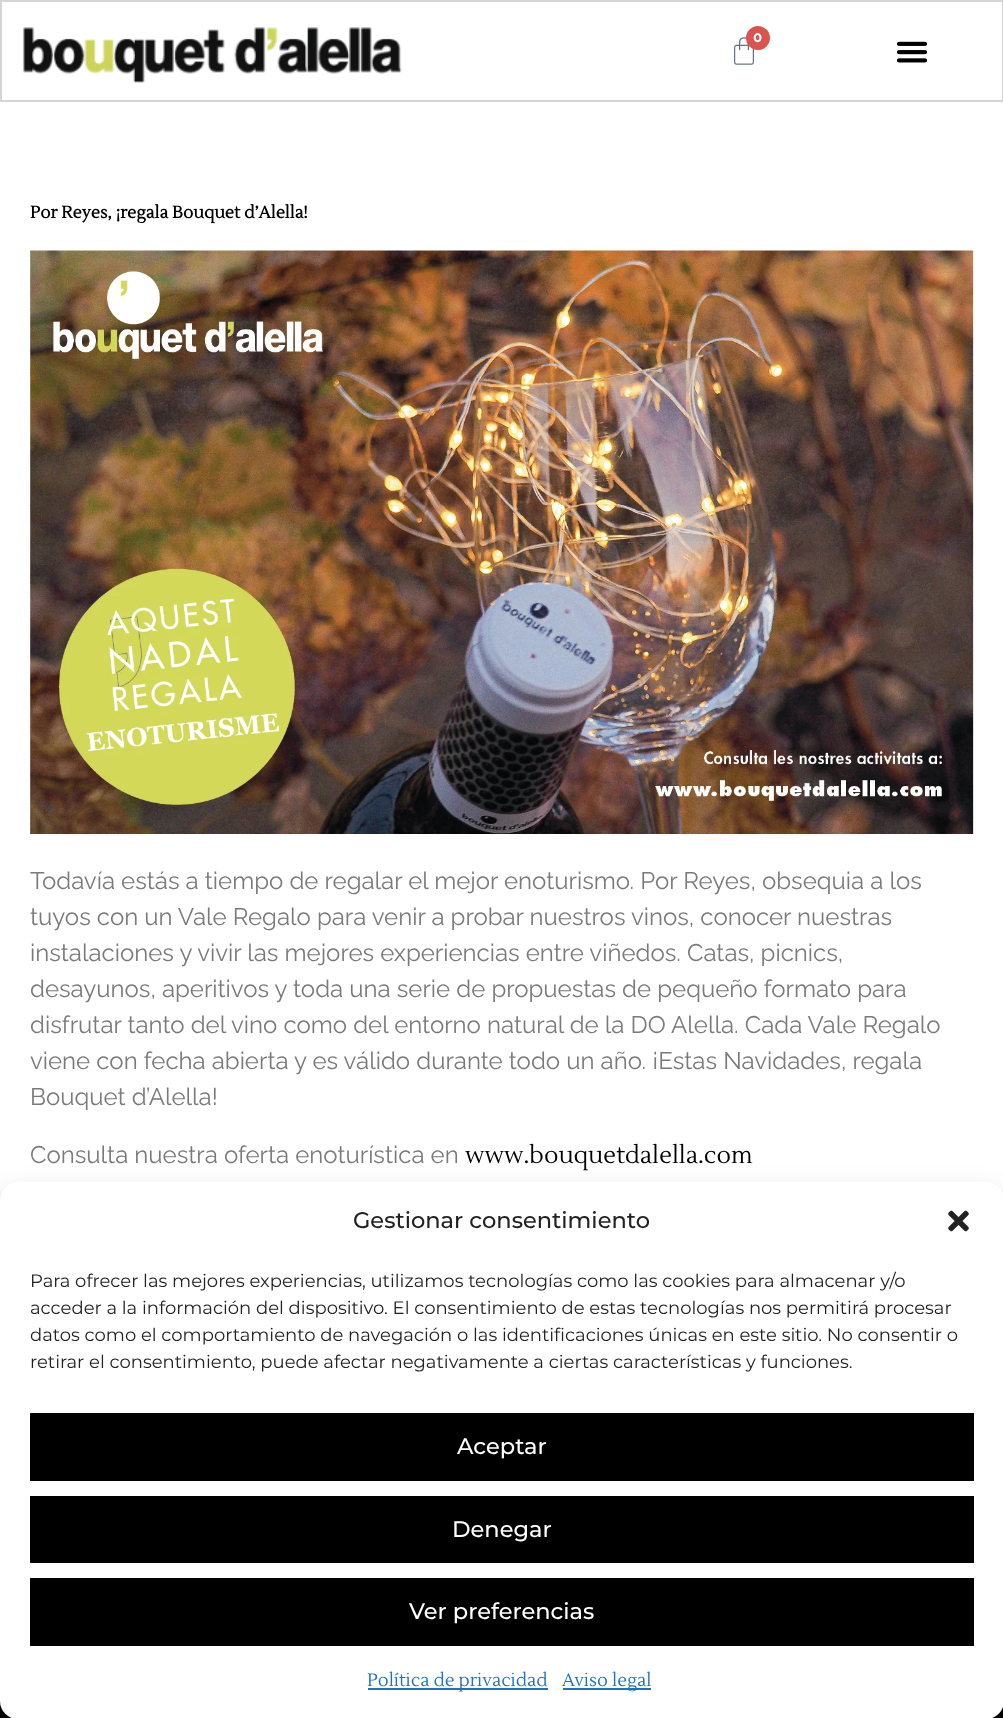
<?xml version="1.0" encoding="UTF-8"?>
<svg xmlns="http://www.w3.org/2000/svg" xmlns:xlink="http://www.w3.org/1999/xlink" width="1003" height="1718">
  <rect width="100%" height="100%" fill="#ffffff" />
  <rect x="1" y="1" width="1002" height="100" fill="none" stroke="#d5d5d5" stroke-width="2" />
  <image x="22" y="27" width="380" height="56" xlink:href="image1.png" />
  <image x="734" y="37" width="20" height="28" xlink:href="image2.png" />
  <circle cx="758" cy="38" r="12" fill="#d9534f" />
  <image x="896" y="41" width="32" height="22" xlink:href="image3.png" />
  <image x="30" y="250" width="944" height="584" xlink:href="image4.png" />
  <rect y="1701" width="1003" height="17" fill="#000000" />
  <rect y="1191" width="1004" height="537" rx="18" fill="#000000" fill-opacity="0.23" filter="blur(4.5px)" />
  <rect y="1197" width="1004" height="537" rx="18" fill="#000000" fill-opacity="0.19" filter="blur(15px)" />
  <rect y="1182" width="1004" height="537" rx="18" fill="#ffffff" />
  <image x="948" y="1210" width="21" height="22" xlink:href="image5.png" />
  <rect x="30" y="1413" width="944" height="68" fill="#000000" />
  <rect x="30" y="1496" width="944" height="67" fill="#000000" />
  <rect x="30" y="1578" width="944" height="68" fill="#000000" />
  <rect x="368" y="1688" width="180" height="2" fill="#1e73be" />
  <rect x="563" y="1688" width="88" height="2" fill="#1e73be" />
  <text x="753" y="42" style="font-family: Raleway; font-size: 15px; font-weight: bold; fill: #ffffff">0</text>
  <text x="30" y="218" style="font-family: Lustria; font-size: 17px; font-weight: bold; fill: #000000">Por Reyes, ¡regala Bouquet d’Alella!</text>
  <text x="30" y="889" style="font-family: Raleway; font-size: 24px; fill: #7a7a7a">Todavía estás a tiempo de regalar el mejor enoturismo. Por Reyes, obsequia a los</text>
  <text x="30" y="925" style="font-family: Raleway; font-size: 24px; fill: #7a7a7a">tuyos con un Vale Regalo para venir a probar nuestros vinos, conocer nuestras</text>
  <text x="30" y="961" style="font-family: Raleway; font-size: 24px; fill: #7a7a7a">instalaciones y vivir las mejores experiencias entre viñedos. Catas, picnics,</text>
  <text x="30" y="997" style="font-family: Raleway; font-size: 24px; fill: #7a7a7a">desayunos, aperitivos y toda una serie de propuestas de pequeño formato para</text>
  <text x="30" y="1033" style="font-family: Raleway; font-size: 24px; fill: #7a7a7a">disfrutar tanto del vino como del entorno natural de la DO Alella. Cada Vale Regalo</text>
  <text x="30" y="1069" style="font-family: Raleway; font-size: 24px; fill: #7a7a7a">viene con fecha abierta y es válido durante todo un año. ¡Estas Navidades, regala</text>
  <text x="30" y="1105" style="font-family: Raleway; font-size: 24px; fill: #7a7a7a">Bouquet d’Alella!</text>
  <text x="30" y="1163" style="font-family: Raleway; font-size: 24px; fill: #7a7a7a">Consulta nuestra oferta enoturística en</text>
  <text x="465" y="1163" style="font-family: Lustria; font-size: 24px; fill: #000000">www.bouquetdalella.com</text>
  <text x="353" y="1228" style="font-family: Montserrat; font-size: 22.5px; font-weight: 500; fill: #222222">Gestionar consentimiento</text>
  <text x="30" y="1287" style="font-family: Montserrat; font-size: 18px; fill: #222222">Para ofrecer las mejores experiencias, utilizamos tecnologías como las cookies para almacenar y/o</text>
  <text x="30" y="1314" style="font-family: Montserrat; font-size: 18px; fill: #222222">acceder a la información del dispositivo. El consentimiento de estas tecnologías nos permitirá procesar</text>
  <text x="30" y="1341" style="font-family: Montserrat; font-size: 18px; fill: #222222">datos como el comportamiento de navegación o las identificaciones únicas en este sitio. No consentir o</text>
  <text x="30" y="1368" style="font-family: Montserrat; font-size: 18px; fill: #222222">retirar el consentimiento, puede afectar negativamente a ciertas características y funciones.</text>
  <text x="457" y="1454" style="font-family: Montserrat; font-size: 22.5px; font-weight: 500; fill: #ffffff">Aceptar</text>
  <text x="452" y="1537" style="font-family: Montserrat; font-size: 22.5px; font-weight: 500; fill: #ffffff">Denegar</text>
  <text x="409" y="1619" style="font-family: Montserrat; font-size: 22.5px; font-weight: 500; fill: #ffffff">Ver preferencias</text>
  <text x="367" y="1686" style="font-family: Lustria; font-size: 18px; fill: #1e73be">Política de privacidad</text>
  <text x="562" y="1686" style="font-family: Lustria; font-size: 18px; fill: #1e73be">Aviso legal</text>
</svg>
